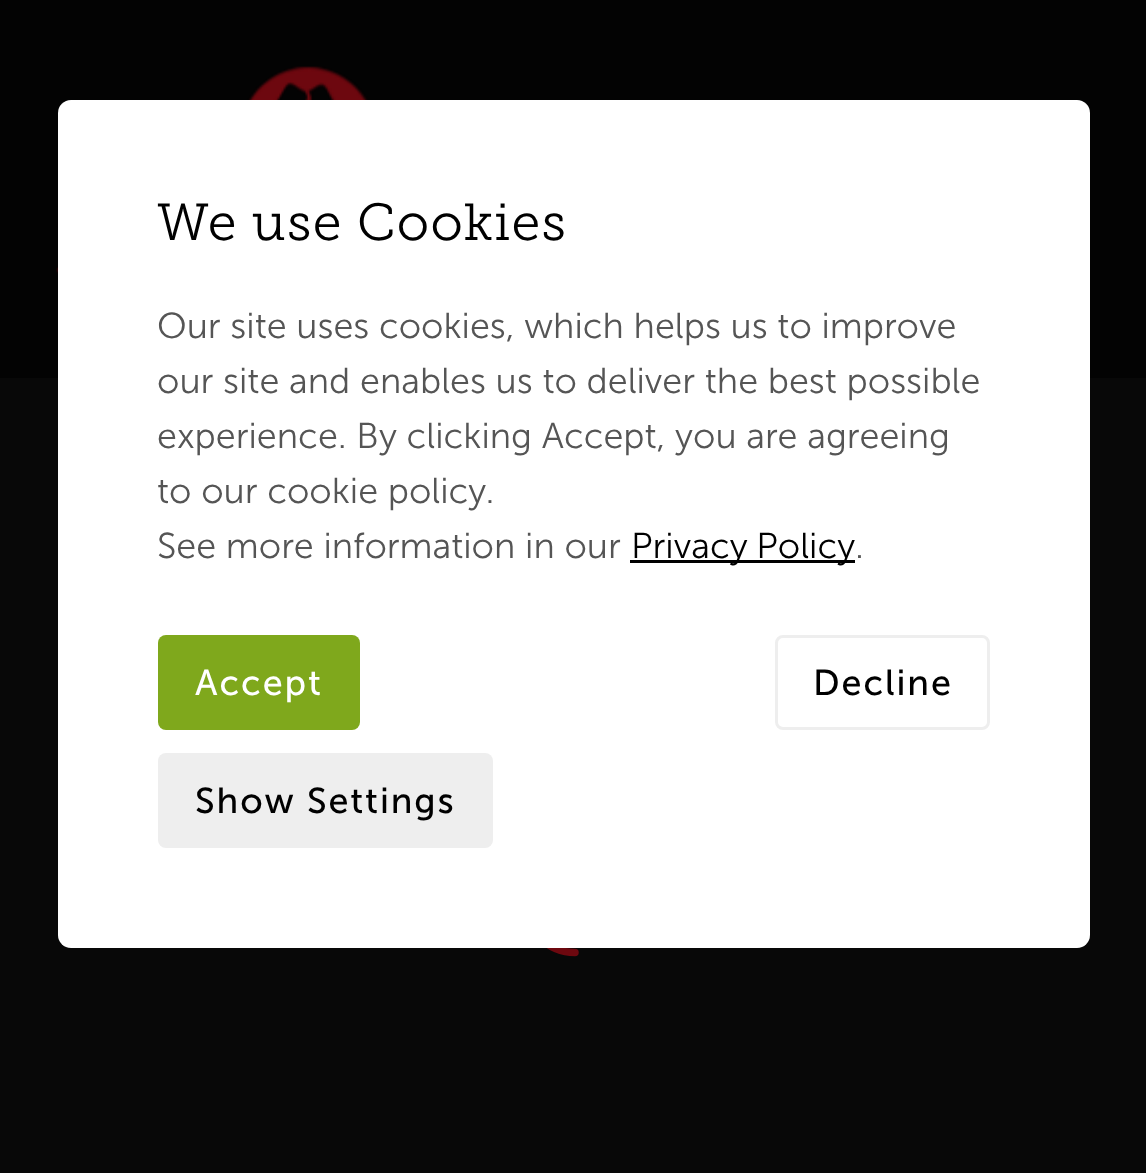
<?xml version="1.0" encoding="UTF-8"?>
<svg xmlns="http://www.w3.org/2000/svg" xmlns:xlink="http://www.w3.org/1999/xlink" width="1146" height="1173">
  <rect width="100%" height="100%" fill="#080808" />
  <rect width="1146" height="378" fill="#030303" />
  <image x="56" y="66" width="312" height="208" xlink:href="image1.png" />
  <path d="M 575 852.5 c 27.5 0 50 23 50 50 m -50 50 c -27.5 0 -50 -23 -50 -50" fill="none" stroke="#6d080f" stroke-width="7.5" stroke-linecap="round" />
  <rect x="58" y="100" width="1032" height="848" rx="13" fill="#ffffff" />
  <rect x="630" y="560" width="225" height="3" fill="#000000" />
  <rect x="158" y="635" width="202" height="95" rx="8" fill="#7fa81c" />
  <rect x="776.5" y="636.5" width="212" height="92" rx="6.5" fill="none" stroke="#eeeeee" stroke-width="3" />
  <rect x="158" y="753" width="335" height="95" rx="8" fill="#eeeeee" />
  <text x="157" y="240" style="font-family: 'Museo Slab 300'; font-size: 52px; font-weight: 300; letter-spacing: 1.25px; fill: #000000">We use Cookies</text>
  <text x="157" y="338" style="font-family: 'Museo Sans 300'; font-size: 36px; font-weight: 300; fill: #555555">Our site uses cookies, which helps us to improve</text>
  <text x="157" y="393" style="font-family: 'Museo Sans 300'; font-size: 36px; font-weight: 300; fill: #555555">our site and enables us to deliver the best possible</text>
  <text x="157" y="448" style="font-family: 'Museo Sans 300'; font-size: 36px; font-weight: 300; fill: #555555">experience. By clicking Accept, you are agreeing</text>
  <text x="157" y="503" style="font-family: 'Museo Sans 300'; font-size: 36px; font-weight: 300; fill: #555555">to our cookie policy.</text>
  <text x="157" y="558" style="font-family: 'Museo Sans 300'; font-size: 36px; font-weight: 300; fill: #555555">See more information in our</text>
  <text x="631" y="558" word-spacing="-1" style="font-family: 'Museo Sans 300'; font-size: 36px; font-weight: 300; fill: #000000">Privacy Policy</text>
  <text x="855" y="558" style="font-family: 'Museo Sans 300'; font-size: 36px; font-weight: 300; fill: #555555">.</text>
  <text x="195" y="695" style="font-family: 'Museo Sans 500'; font-size: 36px; letter-spacing: 1.9px; fill: #ffffff">Accept</text>
  <text x="813" y="695" style="font-family: 'Museo Sans 500'; font-size: 36px; letter-spacing: 1.9px; fill: #000000">Decline</text>
  <text x="195" y="813" style="font-family: 'Museo Sans 500'; font-size: 36px; letter-spacing: 1.9px; fill: #000000">Show Settings</text>
</svg>
